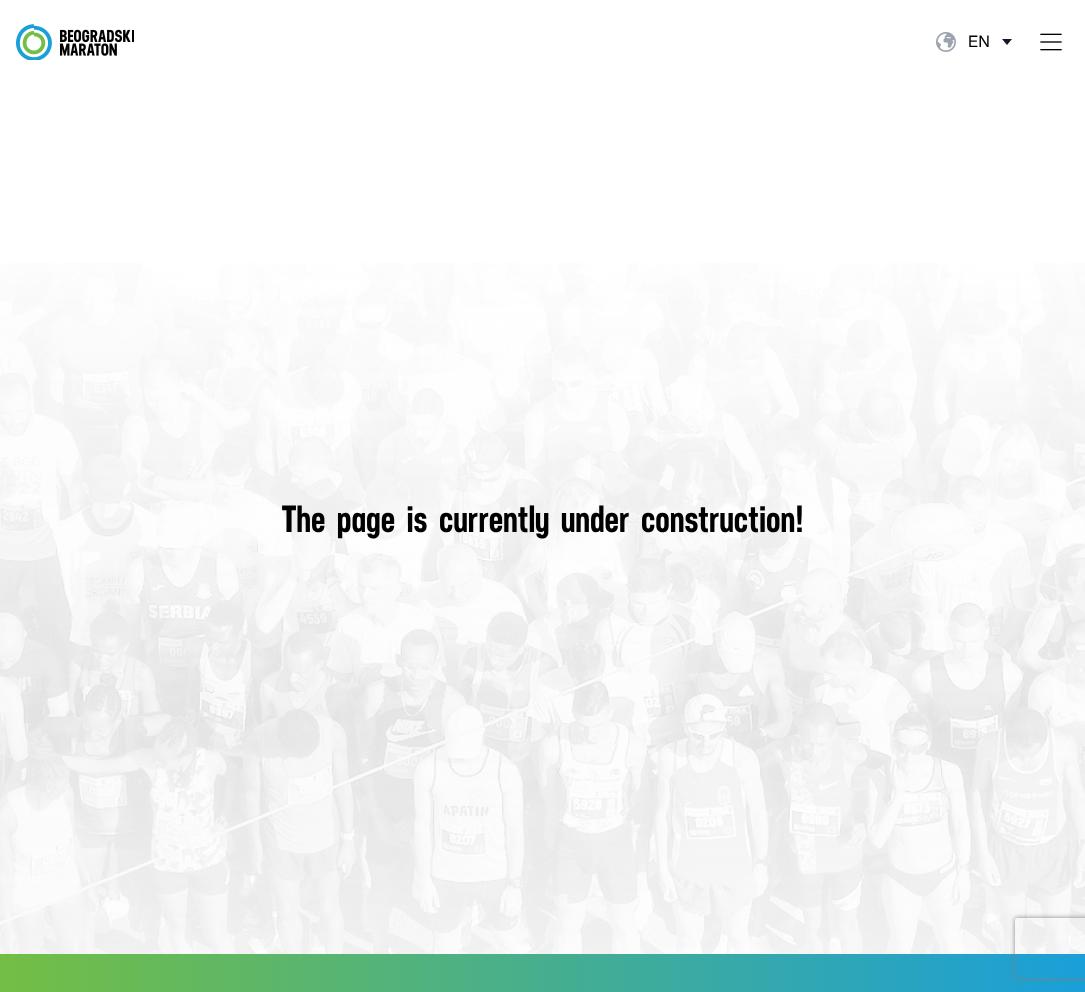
<?xml version="1.0" encoding="UTF-8"?>
<svg xmlns="http://www.w3.org/2000/svg" xmlns:xlink="http://www.w3.org/1999/xlink" width="1085" height="992">
  <defs>
    <linearGradient id="g1" gradientUnits="userSpaceOnUse" x1="0" y1="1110" x2="1085" y2="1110"><stop offset="0" stop-color="#73be44" /><stop offset="1" stop-color="#1a9fd9" /></linearGradient>
    <clipPath id="clip1"><path d="M 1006 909 h 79 v 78 h -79 z m 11 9 h 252 c 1 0 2 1 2 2 v 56 c 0 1 -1 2 -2 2 h -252 c -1 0 -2 -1 -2 -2 v -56 c 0 -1 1 -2 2 -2 z" clip-rule="evenodd" /></clipPath>
  </defs>
  <rect width="100%" height="100%" fill="#ffffff" />
  <image x="16" y="24" width="118" height="36" xlink:href="image1.png" />
  <image x="936" y="32" width="20" height="20" xlink:href="image2.png" />
  <path d="M 1012 39 l -5 6 l -5 -6 z" fill="#111827" />
  <image x="1040" y="33" width="22" height="18" xlink:href="image3.png" />
  <image x="0" y="263" width="1085" height="691" xlink:href="image4.png" />
  <rect y="954" width="1085" height="38" fill="url(#g1)" />
  <g clip-path="url(#clip1)">
    <rect x="1015" y="918" width="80" height="60" rx="2" fill="#808080" filter="blur(2.5px)" />
  </g>
  <text x="968" y="47" style="font-family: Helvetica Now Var; font-size: 16px; fill: #000000">EN</text>
  <text x="281" y="532" style="font-family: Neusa; font-size: 38px; font-weight: bold; fill: #000000">The page is currently under construction!</text>
</svg>
